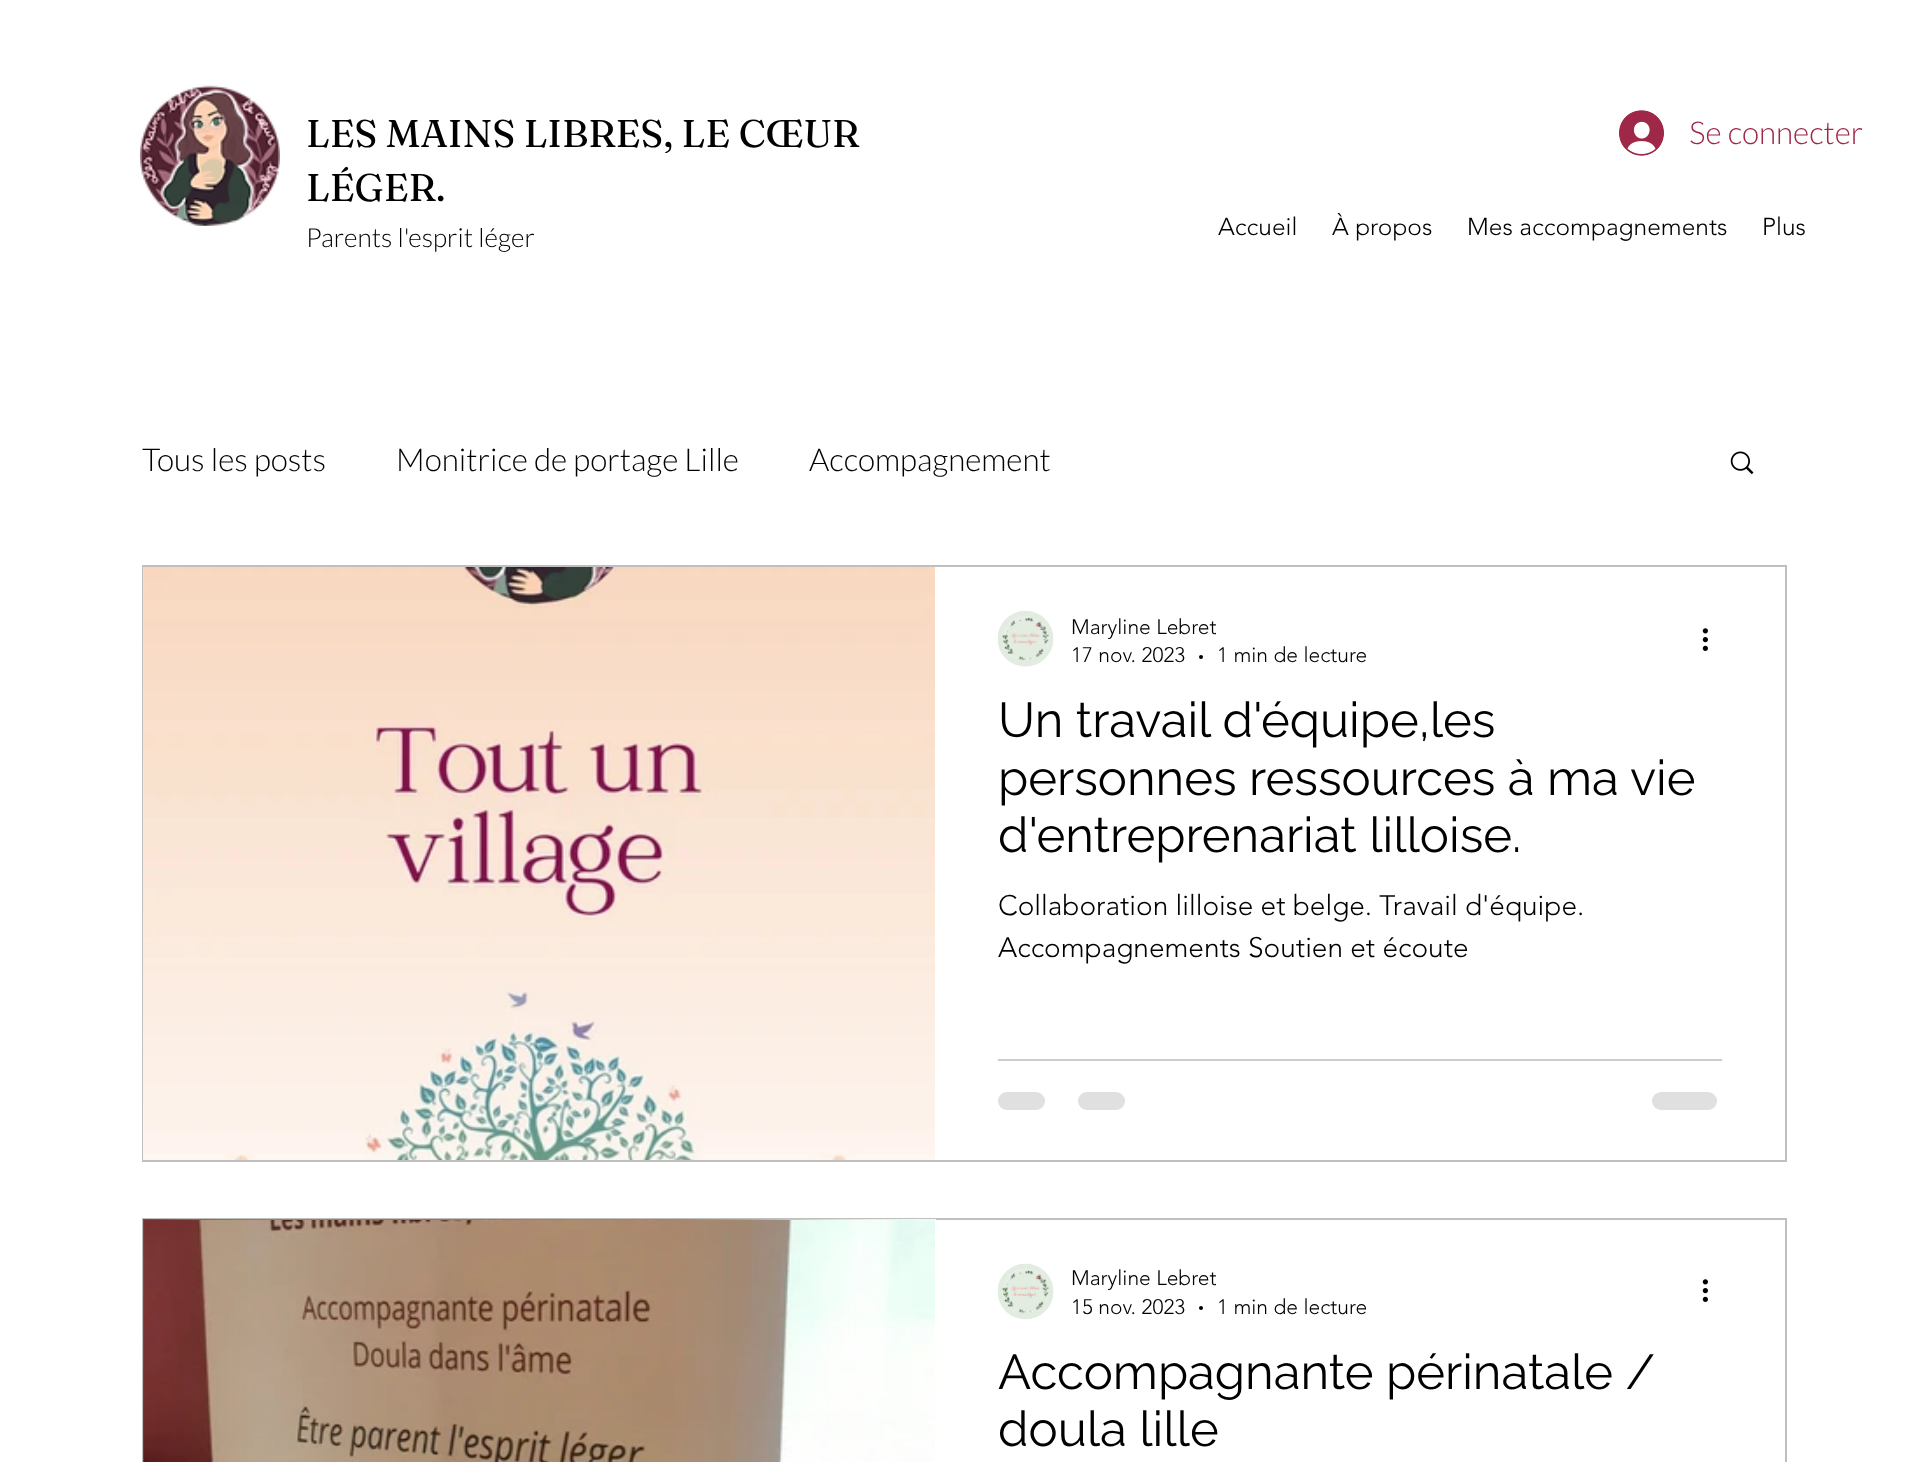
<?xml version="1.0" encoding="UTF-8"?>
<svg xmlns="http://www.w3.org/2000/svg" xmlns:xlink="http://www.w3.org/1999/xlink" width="1927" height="1462">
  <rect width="100%" height="100%" fill="#ffffff" />
  <image x="140" y="85" width="140" height="141" xlink:href="image1.png" />
  <image x="1619" y="110" width="45" height="46" xlink:href="image2.png" />
  <image x="1730" y="451" width="24" height="24" xlink:href="image3.png" />
  <rect x="143" y="566" width="1643" height="595" fill="none" stroke="#bfbfbf" stroke-width="2" />
  <image x="143" y="567" width="1" height="593" xlink:href="image4.png" />
  <image x="144" y="567" width="791" height="593" xlink:href="image5.png" />
  <image x="997" y="611" width="57" height="56" xlink:href="image6.png" />
  <circle cx="1201" cy="657" r="2" fill="#000000" />
  <image x="1702" y="628" width="6" height="23" xlink:href="image7.png" />
  <rect x="998" y="1059" width="724" height="2" fill="#cccccc" />
  <rect x="998" y="1092" width="47" height="18" rx="9" fill="#e0e0e0" />
  <rect x="1078" y="1092" width="47" height="18" rx="9" fill="#e0e0e0" />
  <rect x="1652" y="1092" width="65" height="18" rx="9" fill="#e0e0e0" />
  <rect x="143" y="1219" width="1643" height="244" fill="none" stroke="#bfbfbf" stroke-width="2" />
  <image x="143" y="1219" width="793" height="243" xlink:href="image8.png" />
  <image x="144" y="1220" width="791" height="242" xlink:href="image9.png" />
  <rect x="935" y="1220" width="1" height="242" fill="#ffffff" />
  <image x="997" y="1263" width="57" height="57" xlink:href="image10.png" />
  <circle cx="1201" cy="1308" r="2" fill="#000000" />
  <image x="1702" y="1279" width="6" height="23" xlink:href="image7.png" />
  <text x="306" y="147" style="font-family: Fraunces; font-size: 38.5px; fill: #000000">LES MAINS LIBRES, LE CŒUR</text>
  <text x="306" y="201" style="font-family: Fraunces; font-size: 38.5px; fill: #000000">LÉGER.</text>
  <text x="306" y="247" style="font-family: Lato; font-size: 26.25px; font-weight: 300; fill: #000000">Parents l'esprit léger</text>
  <text x="1218" y="235" style="font-family: 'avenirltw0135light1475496'; font-size: 24.5px; font-weight: 300; fill: #000000">Accueil</text>
  <text x="1332" y="235" style="font-family: 'avenirltw0135light1475496'; font-size: 24.5px; font-weight: 300; fill: #000000">À propos</text>
  <text x="1467" y="235" style="font-family: 'avenirltw0135light1475496'; font-size: 24.5px; font-weight: 300; fill: #000000">Mes accompagnements</text>
  <text x="1762" y="235" style="font-family: 'avenirltw0135light1475496'; font-size: 24.5px; font-weight: 300; fill: #000000">Plus</text>
  <text x="1689" y="144" style="font-family: Lato; font-size: 31.5px; font-weight: 300; fill: #9f2747">Se connecter</text>
  <text x="142" y="471" style="font-family: Lato; font-size: 31.5px; font-weight: 300; fill: #000000">Tous les posts</text>
  <text x="396" y="471" style="font-family: Lato; font-size: 31.5px; font-weight: 300; fill: #000000">Monitrice de portage Lille</text>
  <text x="809" y="471" style="font-family: Lato; font-size: 31.5px; font-weight: 300; fill: #000000">Accompagnement</text>
  <text x="1071" y="634" style="font-family: 'avenirltw0135light1475496'; font-size: 21px; font-weight: 300; fill: #000000">Maryline Lebret</text>
  <text x="1071" y="662" style="font-family: 'avenirltw0135light1475496'; font-size: 21px; font-weight: 300; fill: #000000">17 nov. 2023</text>
  <text x="1217" y="662" style="font-family: 'avenirltw0135light1475496'; font-size: 21px; font-weight: 300; fill: #000000">1 min de lecture</text>
  <text x="998" y="737" style="font-family: Raleway; font-size: 49px; fill: #000000">Un travail d'équipe,les</text>
  <text x="998" y="795" style="font-family: Raleway; font-size: 49px; fill: #000000">personnes ressources à ma vie</text>
  <text x="998" y="852" style="font-family: Raleway; font-size: 49px; fill: #000000">d'entreprenariat lilloise.</text>
  <text x="998" y="915" style="font-family: 'avenirltw0135light1475496'; font-size: 28px; font-weight: 300; fill: #000000">Collaboration lilloise et belge. Travail d'équipe.</text>
  <text x="998" y="957" style="font-family: 'avenirltw0135light1475496'; font-size: 28px; font-weight: 300; fill: #000000">Accompagnements Soutien et écoute</text>
  <text x="1071" y="1285" style="font-family: 'avenirltw0135light1475496'; font-size: 21px; font-weight: 300; fill: #000000">Maryline Lebret</text>
  <text x="1071" y="1314" style="font-family: 'avenirltw0135light1475496'; font-size: 21px; font-weight: 300; fill: #000000">15 nov. 2023</text>
  <text x="1217" y="1314" style="font-family: 'avenirltw0135light1475496'; font-size: 21px; font-weight: 300; fill: #000000">1 min de lecture</text>
  <text x="998" y="1389" style="font-family: Raleway; font-size: 49px; fill: #000000">Accompagnante périnatale /</text>
  <text x="998" y="1446" style="font-family: Raleway; font-size: 49px; fill: #000000">doula lille</text>
</svg>
